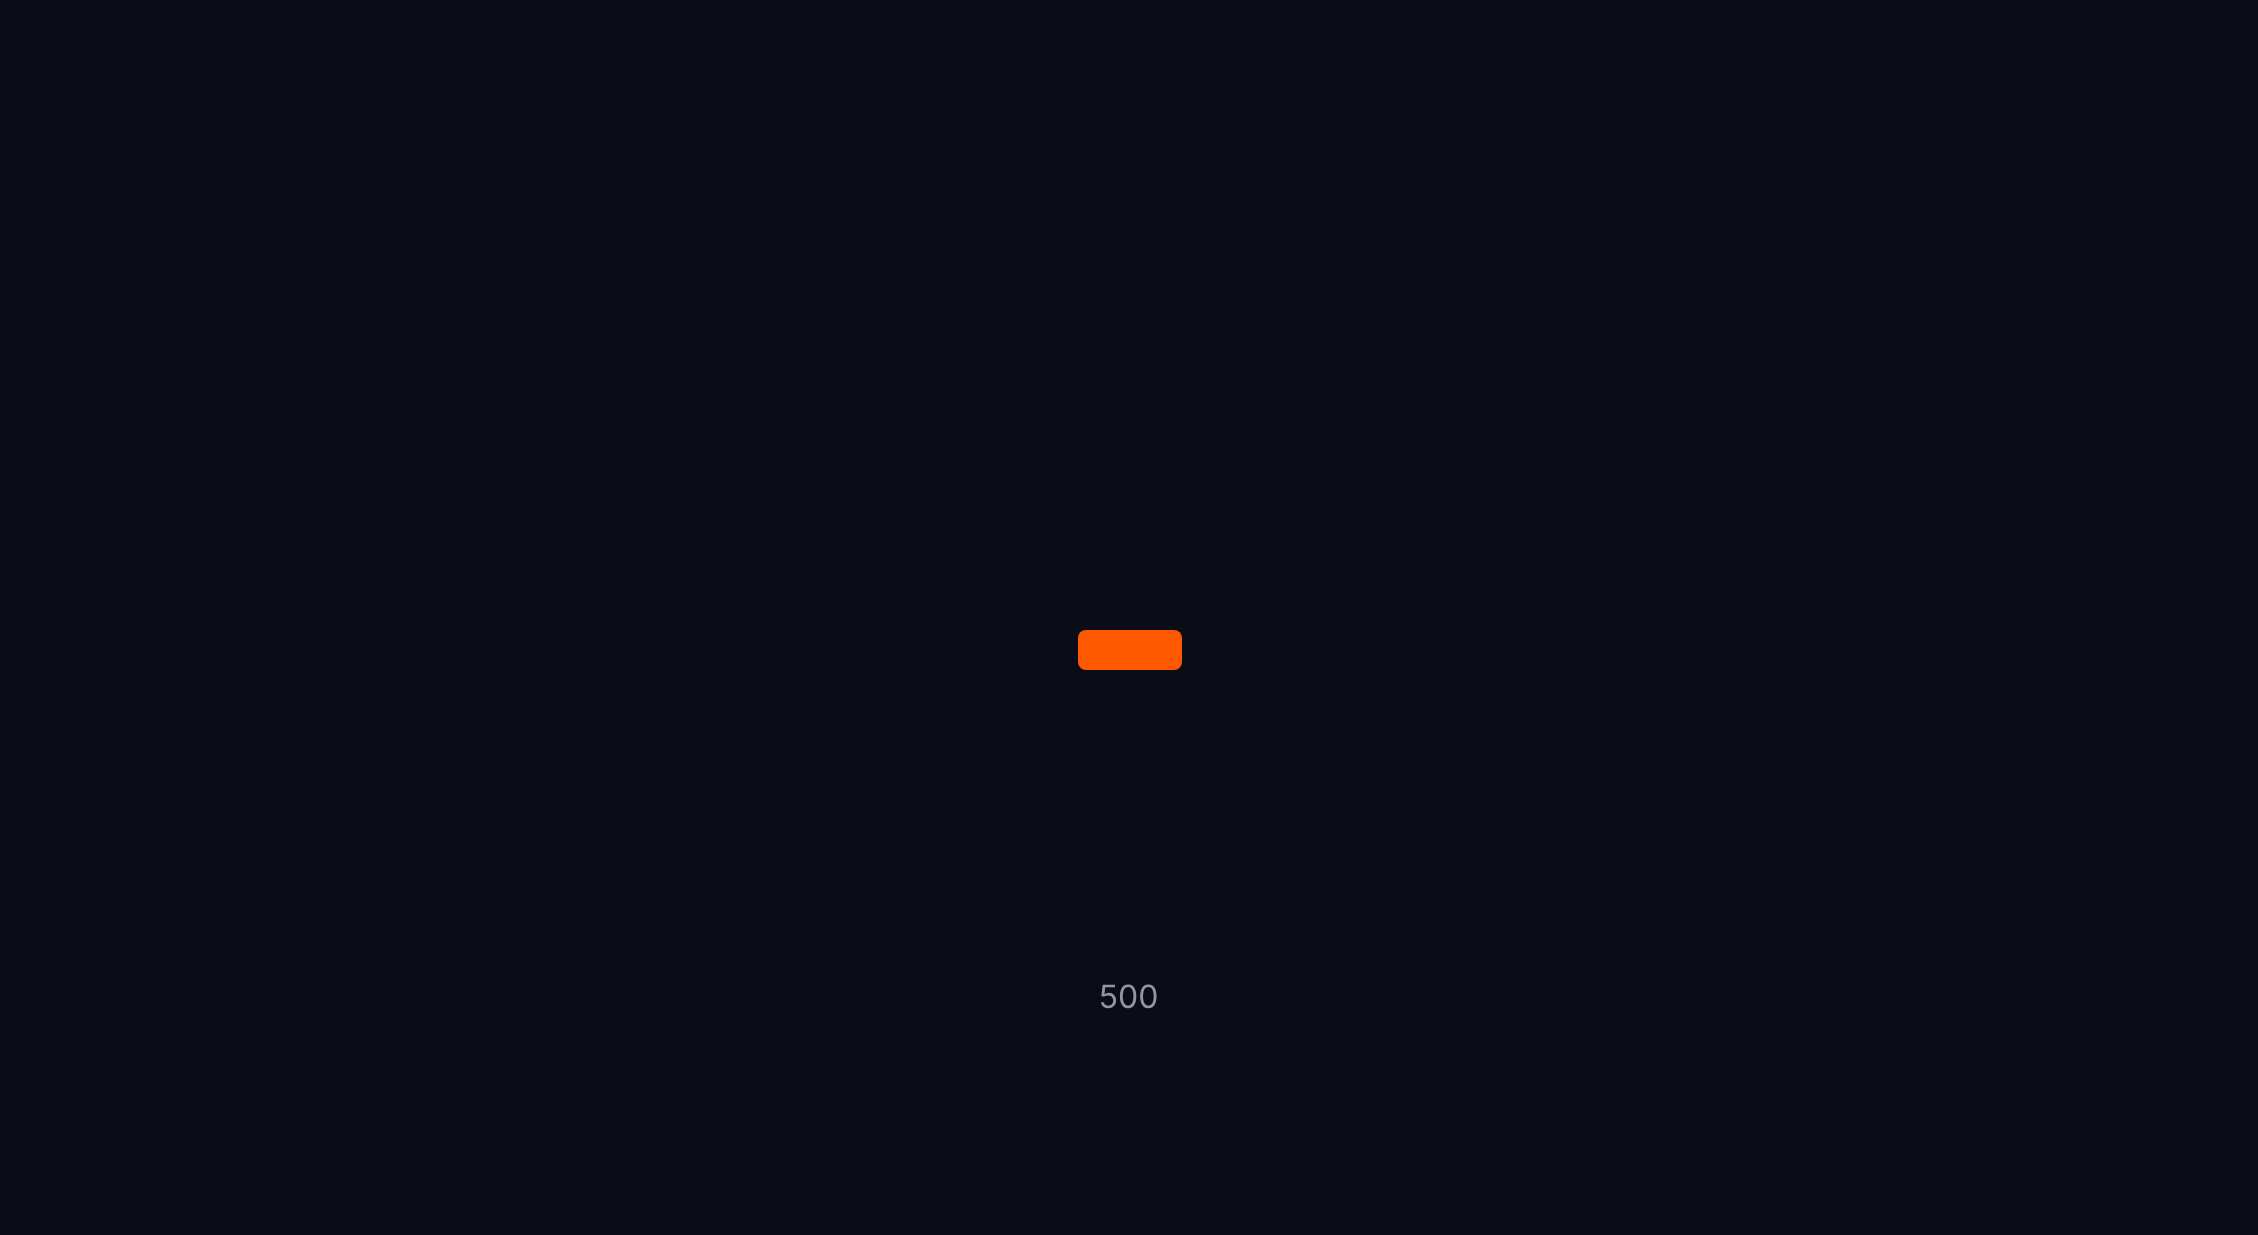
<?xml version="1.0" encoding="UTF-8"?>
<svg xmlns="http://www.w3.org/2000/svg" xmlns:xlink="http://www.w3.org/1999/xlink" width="2258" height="1235">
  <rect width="100%" height="100%" fill="#0a0d18" />
  <rect x="1078" y="630" width="104" height="40" rx="8" fill="#ff5900" />
  <text x="1099" y="1008" style="font-family: Inter; font-size: 32px; fill: #95969b">500</text>
</svg>
